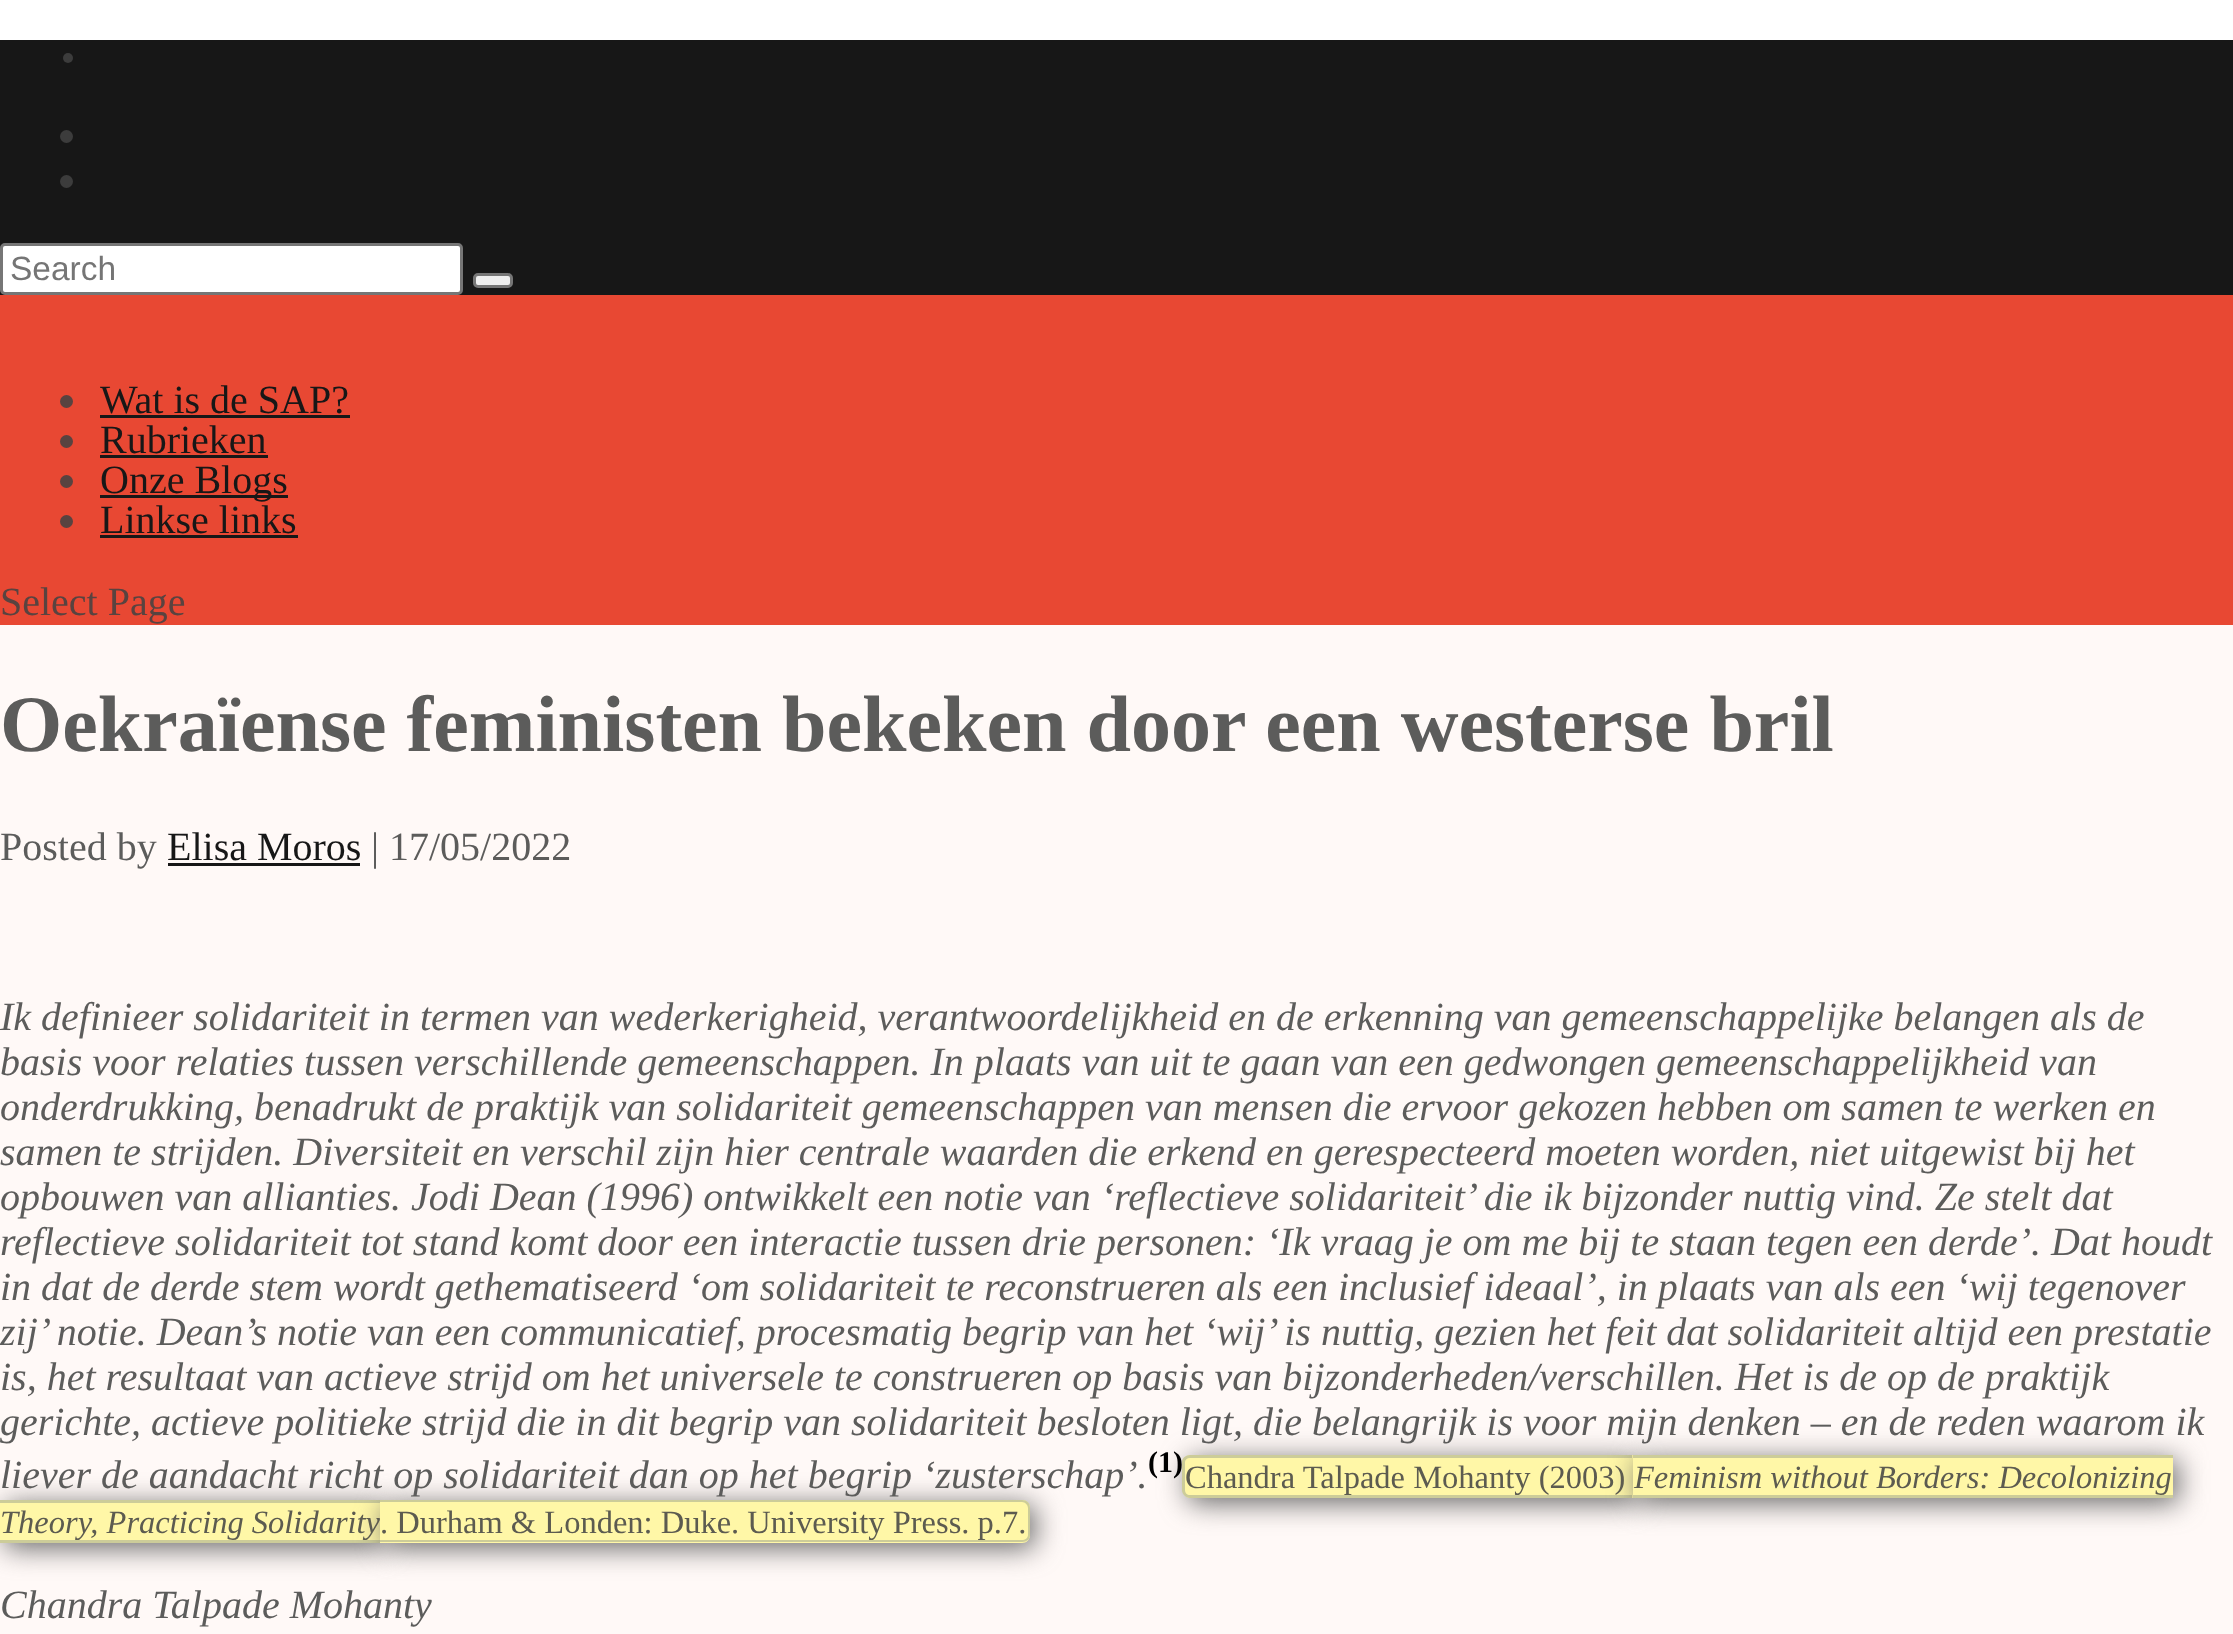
<?xml version="1.0" encoding="UTF-8"?>
<svg xmlns="http://www.w3.org/2000/svg" xmlns:xlink="http://www.w3.org/1999/xlink" width="2233" height="1634">
  <rect width="100%" height="100%" fill="#ffffff" />
  <rect y="625" width="2233" height="1009" fill="#fff9f7" />
  <rect y="40" width="2233" height="255" fill="#171717" />
  <circle cx="68" cy="58" r="5" fill="#3c3c3c" />
  <circle cx="66.5" cy="136.5" r="6.5" fill="#3c3c3c" />
  <circle cx="66.5" cy="181.5" r="6.5" fill="#3c3c3c" />
  <rect x="1.5" y="244.5" width="460" height="49" rx="3.5" fill="#ffffff" stroke="#767676" stroke-width="3" />
  <rect x="474.5" y="274.5" width="37" height="12" rx="3.5" fill="#efefef" stroke="#767676" stroke-width="3" />
  <rect y="295" width="2233" height="330" fill="#e84833" />
  <circle cx="66.5" cy="401.5" r="6.5" fill="#594340" />
  <rect x="100" y="415" width="250" height="3" fill="#171717" />
  <circle cx="66.5" cy="441.5" r="6.5" fill="#594340" />
  <rect x="100" y="455" width="168" height="3" fill="#171717" />
  <circle cx="66.5" cy="481.5" r="6.5" fill="#594340" />
  <rect x="100" y="495" width="188" height="3" fill="#171717" />
  <circle cx="66.5" cy="521.5" r="6.5" fill="#594340" />
  <rect x="100" y="535" width="198" height="3" fill="#171717" />
  <rect x="168" y="863" width="192" height="3" fill="#171717" />
  <rect x="1188" y="1460" width="450" height="43" rx="8" fill="#666666" filter="blur(14px)" />
  <path d="M 1191 1455 h 442 v 43 h -442 c -4.5 0 -8 -3.5 -8 -8 v -27 c 0 -4.5 3.5 -8 8 -8 z" fill="#fff7a7" />
  <path d="M 1190 1455 h 442 v 43 h -442 c -4 0 -8 -4 -8 -8 v -28 c 0 -4 4 -7 8 -7 z m 0 3 h 442 v 37 h -442 c -3 0 -5 -2 -5 -5 v -28 c 0 -2 2 -4 5 -4 z" fill="#cccc99" fill-rule="evenodd" />
  <rect x="1638" y="1460" width="540" height="43" fill="#666666" filter="blur(14px)" />
  <rect x="1633" y="1458" width="540" height="37" fill="#fff7a7" />
  <rect x="1633" y="1455" width="540" height="3" fill="#cccc99" />
  <rect x="1633" y="1495" width="540" height="3" fill="#cccc99" />
  <rect x="5" y="1505" width="380" height="43" fill="#666666" filter="blur(14px)" />
  <rect y="1503" width="380" height="37" fill="#fff7a7" />
  <rect y="1500" width="380" height="3" fill="#cccc99" />
  <rect y="1540" width="380" height="3" fill="#cccc99" />
  <rect x="385" y="1505" width="650" height="43" rx="8" fill="#666666" filter="blur(14px)" />
  <path d="M 380 1500 h 642 c 4.5 0 8 3.5 8 8 v 27 c 0 4.5 -3.5 8 -8 8 h -642 z" fill="#fff7a7" />
  <path d="M 380 1500 h 642 c 5 0 8 3 8 8 v 27 c 0 4 -3 7 -8 7 h -642 z m 0 2 h 642 c 3 0 6 3 6 6 v 27 c 0 3 -3 5 -6 5 h -642 z" fill="#cccc99" fill-rule="evenodd" />
  <text x="10" y="280" style="font-family: Liberation Sans; font-size: 33.5px; fill: #757575">Search</text>
  <text x="100" y="413" style="font-family: Liberation Serif; font-size: 40px; fill: #171717">Wat is de SAP?</text>
  <text x="100" y="453" style="font-family: Liberation Serif; font-size: 40px; fill: #171717">Rubrieken</text>
  <text x="100" y="493" style="font-family: Liberation Serif; font-size: 40px; fill: #171717">Onze Blogs</text>
  <text x="100" y="533" style="font-family: Liberation Serif; font-size: 40px; fill: #171717">Linkse links</text>
  <text x="0" y="615" style="font-family: Liberation Serif; font-size: 40px; fill: #594340">Select Page</text>
  <text x="0" y="751" style="font-family: Liberation Serif; font-size: 80px; font-weight: bold; fill: #5c5c5b">Oekraïense feministen bekeken door een westerse bril</text>
  <text x="0" y="860" style="font-family: Liberation Serif; font-size: 40px; fill: #5c5c5b">Posted by</text>
  <text x="167" y="860" style="font-family: Liberation Serif; font-size: 40px; fill: #171717">Elisa Moros</text>
  <text x="371" y="860" style="font-family: Liberation Serif; font-size: 40px; fill: #5c5c5b">| 17/05/2022</text>
  <text x="0" y="1030" style="font-family: Liberation Serif; font-size: 40px; font-style: italic; fill: #5c5c5b">Ik definieer solidariteit in termen van wederkerigheid, verantwoordelijkheid en de erkenning van gemeenschappelijke belangen als de</text>
  <text x="0" y="1075" style="font-family: Liberation Serif; font-size: 40px; font-style: italic; fill: #5c5c5b">basis voor relaties tussen verschillende gemeenschappen. In plaats van uit te gaan van een gedwongen gemeenschappelijkheid van</text>
  <text x="0" y="1120" style="font-family: Liberation Serif; font-size: 40px; font-style: italic; fill: #5c5c5b">onderdrukking, benadrukt de praktijk van solidariteit gemeenschappen van mensen die ervoor gekozen hebben om samen te werken en</text>
  <text x="0" y="1165" style="font-family: Liberation Serif; font-size: 40px; font-style: italic; fill: #5c5c5b">samen te strijden. Diversiteit en verschil zijn hier centrale waarden die erkend en gerespecteerd moeten worden, niet uitgewist bij het</text>
  <text x="0" y="1210" style="font-family: Liberation Serif; font-size: 40px; font-style: italic; fill: #5c5c5b">opbouwen van allianties. Jodi Dean (1996) ontwikkelt een notie van ‘reflectieve solidariteit’ die ik bijzonder nuttig vind. Ze stelt dat</text>
  <text x="0" y="1255" style="font-family: Liberation Serif; font-size: 40px; font-style: italic; fill: #5c5c5b">reflectieve solidariteit tot stand komt door een interactie tussen drie personen: ‘Ik vraag je om me bij te staan tegen een derde’. Dat houdt</text>
  <text x="0" y="1300" style="font-family: Liberation Serif; font-size: 40px; font-style: italic; fill: #5c5c5b">in dat de derde stem wordt gethematiseerd ‘om solidariteit te reconstrueren als een inclusief ideaal’, in plaats van als een ‘wij tegenover</text>
  <text x="0" y="1345" style="font-family: Liberation Serif; font-size: 40px; font-style: italic; fill: #5c5c5b">zij’ notie. Dean’s notie van een communicatief, procesmatig begrip van het ‘wij’ is nuttig, gezien het feit dat solidariteit altijd een prestatie</text>
  <text x="0" y="1390" style="font-family: Liberation Serif; font-size: 40px; font-style: italic; fill: #5c5c5b">is, het resultaat van actieve strijd om het universele te construeren op basis van bijzonderheden/verschillen. Het is de op de praktijk</text>
  <text x="0" y="1435" style="font-family: Liberation Serif; font-size: 40px; font-style: italic; fill: #5c5c5b">gerichte, actieve politieke strijd die in dit begrip van solidariteit besloten ligt, die belangrijk is voor mijn denken – en de reden waarom ik</text>
  <text x="0" y="1488" style="font-family: Liberation Serif; font-size: 40px; font-style: italic; fill: #5c5c5b">liever de aandacht richt op solidariteit dan op het begrip ‘zusterschap’.</text>
  <text x="1148" y="1472" style="font-family: Liberation Serif; font-size: 30px; font-weight: bold; fill: #000000">(1)</text>
  <text x="1185" y="1488" style="font-family: Liberation Serif; font-size: 32.5px; fill: #5c5b50">Chandra Talpade Mohanty (2003)</text>
  <text x="1634" y="1488" style="font-family: Liberation Serif; font-size: 32.5px; font-style: italic; fill: #5c5b50">Feminism without Borders: Decolonizing</text>
  <text x="0" y="1533" style="font-family: Liberation Serif; font-size: 32.5px; font-style: italic; fill: #5c5b50">Theory, Practicing Solidarity</text>
  <text x="380" y="1533" style="font-family: Liberation Serif; font-size: 32.5px; fill: #5c5b50">. Durham &amp; Londen: Duke. University Press. p.7.</text>
  <text x="0" y="1618" style="font-family: Liberation Serif; font-size: 40px; font-style: italic; fill: #5c5c5b">Chandra Talpade Mohanty</text>
</svg>
